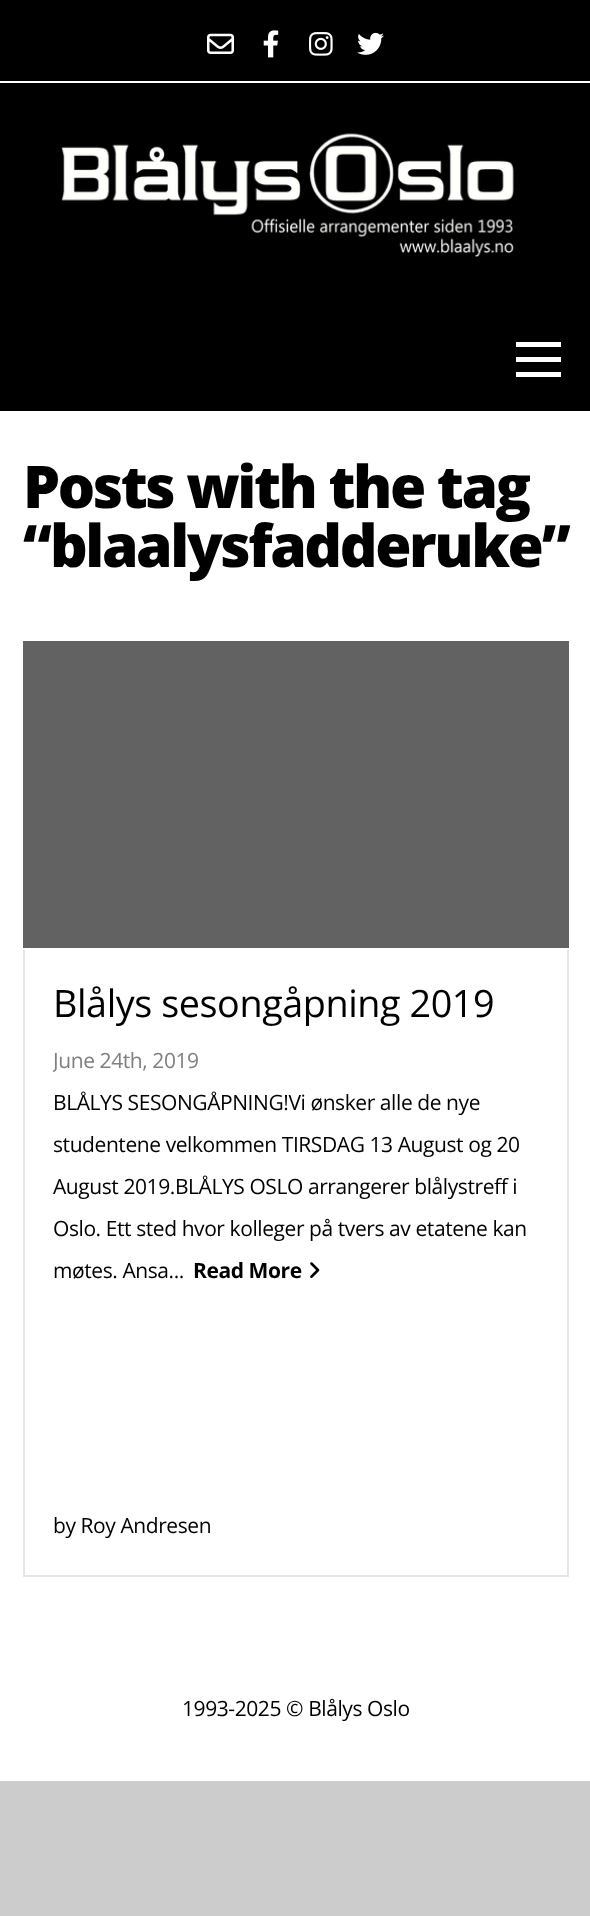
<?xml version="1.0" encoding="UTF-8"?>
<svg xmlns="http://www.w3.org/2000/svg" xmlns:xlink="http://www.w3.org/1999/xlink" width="590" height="1916">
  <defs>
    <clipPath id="clip1"><rect x="53" y="980" width="486" height="525" /></clipPath>
  </defs>
  <rect width="100%" height="100%" fill="#cccccc" />
  <rect width="590" height="411" fill="#000000" />
  <rect y="81" width="590" height="2" fill="#ffffff" />
  <image x="207" y="33" width="27" height="21" xlink:href="image1.png" />
  <image x="263" y="30" width="16" height="28" xlink:href="image2.png" />
  <image x="309" y="32" width="24" height="24" xlink:href="image3.png" />
  <image x="357" y="32" width="27" height="23" xlink:href="image4.png" />
  <image x="61" y="133" width="453" height="124" xlink:href="image5.png" />
  <rect x="516" y="342" width="45" height="5" fill="#ffffff" />
  <rect x="516" y="357" width="45" height="5" fill="#ffffff" />
  <rect x="516" y="372" width="45" height="5" fill="#ffffff" />
  <rect y="411" width="590" height="1370" fill="#ffffff" />
  <rect x="23" y="641" width="546" height="307" fill="#626262" />
  <rect x="567" y="950" width="2" height="627" fill="#e6e6e6" />
  <rect x="23" y="1575" width="546" height="2" fill="#e6e6e6" />
  <rect x="23" y="950" width="2" height="627" fill="#e6e6e6" />
  <image x="310" y="1262" width="10" height="16" xlink:href="image6.png" />
  <text x="23" y="508" style="font-family: Open Sans; font-size: 58.75px; font-weight: 800; letter-spacing: -2.4px; fill: #000000">Posts with the tag</text>
  <text x="23" y="567" style="font-family: Open Sans; font-size: 58.75px; font-weight: 800; letter-spacing: -2.4px; fill: #000000">“blaalysfadderuke”</text>
  <text x="53" y="1017" style="font-family: Open Sans; font-size: 37.75px; letter-spacing: -0.42px; fill: #000000">Blålys sesongåpning 2019</text>
  <g clip-path="url(#clip1)">
    <text x="53" y="1068" style="font-family: Open Sans; font-size: 21px; letter-spacing: -0.42px; fill: #808080">June 24th, 2019</text>
  </g>
  <text x="53" y="1110" style="font-family: Open Sans; font-size: 21px; letter-spacing: -0.42px; fill: #000000">BLÅLYS SESONGÅPNING!Vi ønsker alle de nye</text>
  <text x="53" y="1152" style="font-family: Open Sans; font-size: 21px; letter-spacing: -0.42px; fill: #000000">studentene velkommen TIRSDAG 13 August og 20</text>
  <text x="53" y="1194" style="font-family: Open Sans; font-size: 21px; letter-spacing: -0.42px; fill: #000000">August 2019.BLÅLYS OSLO arrangerer blålystreff i</text>
  <text x="53" y="1236" style="font-family: Open Sans; font-size: 21px; letter-spacing: -0.42px; fill: #000000">Oslo. Ett sted hvor kolleger på tvers av etatene kan</text>
  <text x="53" y="1278" style="font-family: Open Sans; font-size: 21px; letter-spacing: -0.42px; fill: #000000">møtes. Ansa...</text>
  <text x="193" y="1278" style="font-family: Open Sans; font-size: 21px; font-weight: bold; letter-spacing: -0.42px; fill: #000000">Read More</text>
  <text x="53" y="1533" style="font-family: Open Sans; font-size: 21px; letter-spacing: -0.42px; fill: #000000">by Roy Andresen</text>
  <text x="182" y="1716" style="font-family: Open Sans; font-size: 21px; letter-spacing: -0.42px; fill: #000000">1993-2025 © Blålys Oslo</text>
</svg>
